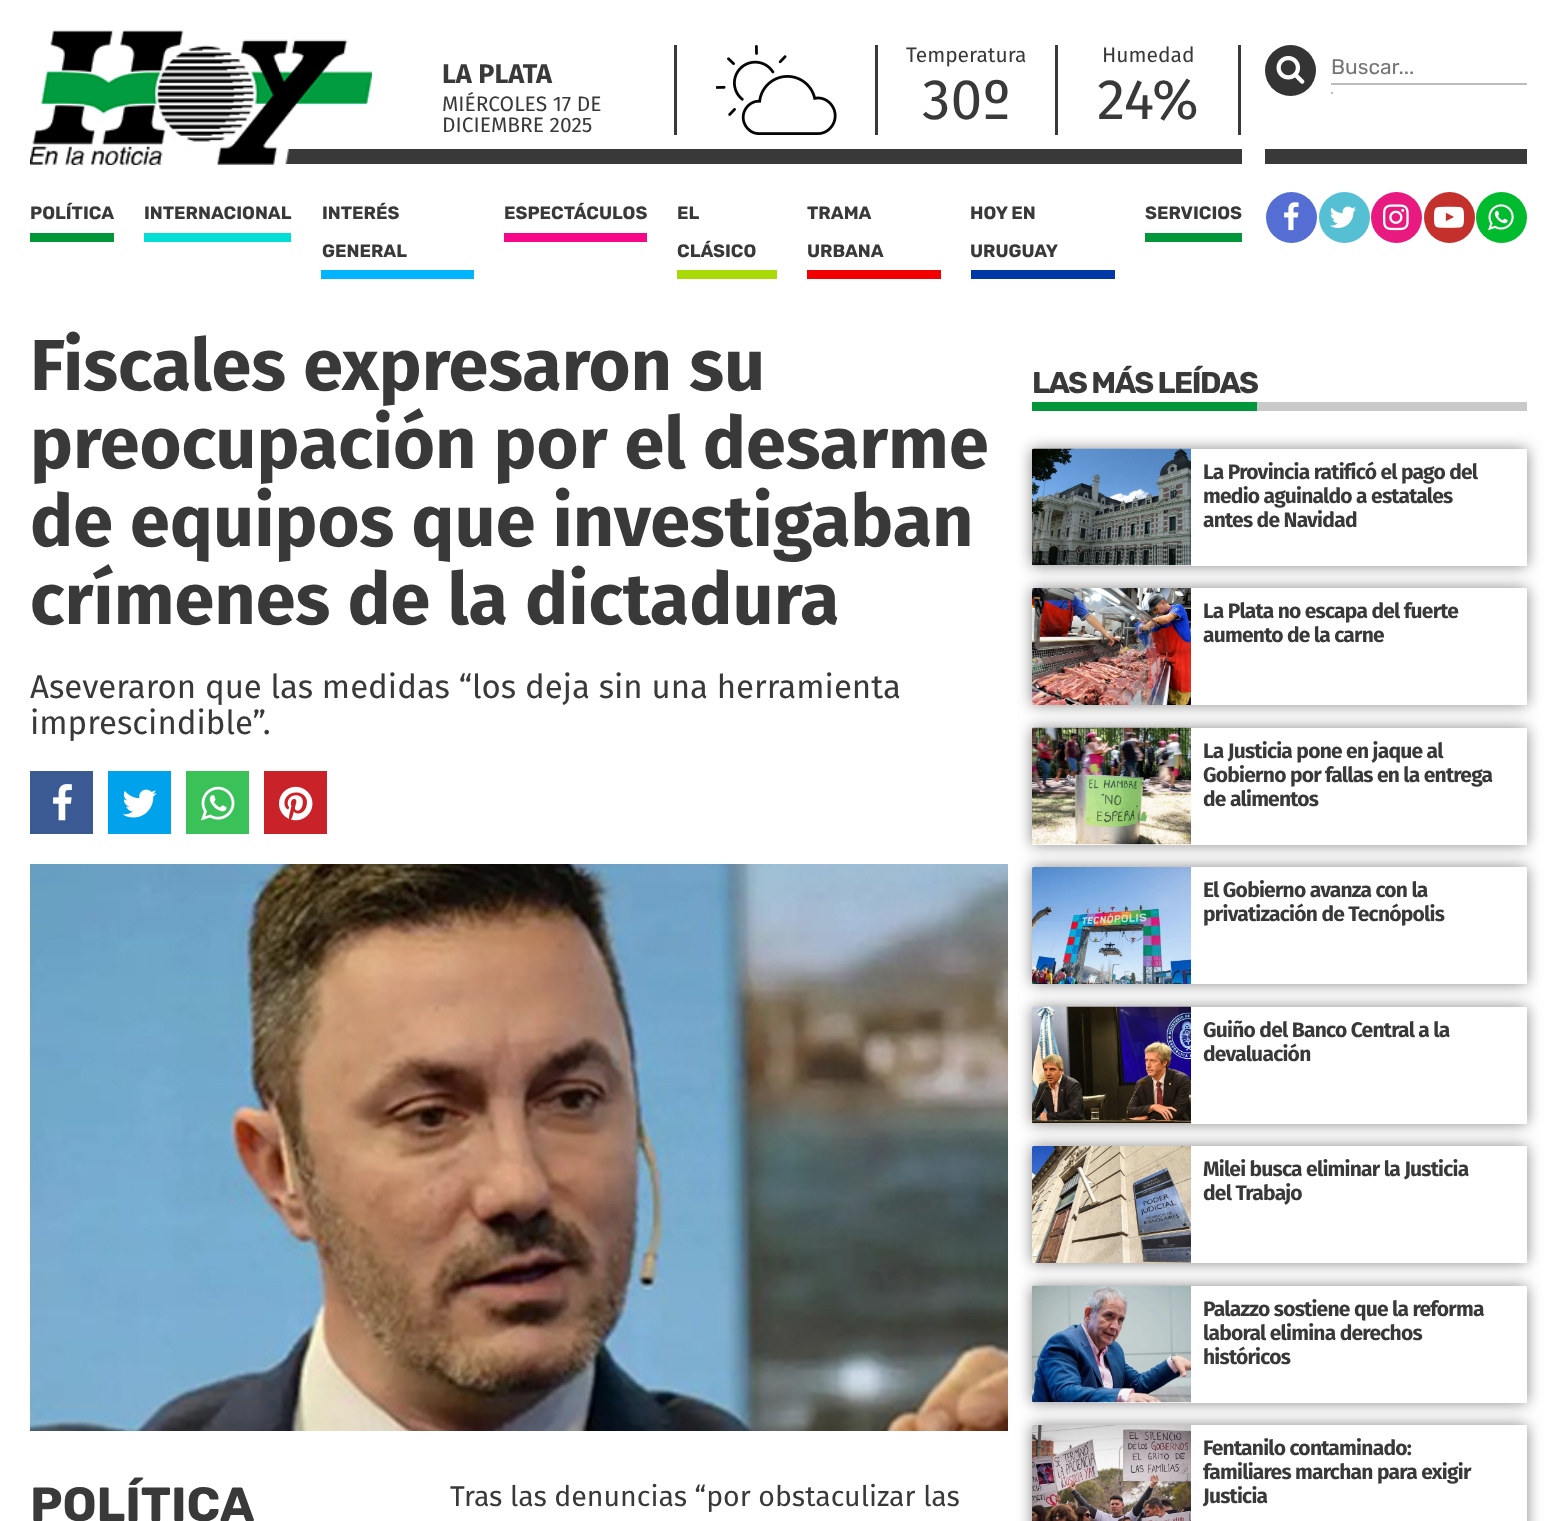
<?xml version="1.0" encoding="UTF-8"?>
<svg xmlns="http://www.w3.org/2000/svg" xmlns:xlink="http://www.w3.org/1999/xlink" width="1557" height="1521">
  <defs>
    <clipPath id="clip1"><path d="M 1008 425 h 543 v 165 h -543 z m 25.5 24 h 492 c 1 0 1.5 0.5 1.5 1.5 v 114 c 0 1 -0.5 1.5 -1.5 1.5 h -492 c -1 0 -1.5 -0.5 -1.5 -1.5 v -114 c 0 -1 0.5 -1.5 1.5 -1.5 z" clip-rule="evenodd" /></clipPath>
    <clipPath id="clip2"><path d="M 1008 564 h 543 v 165 h -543 z m 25.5 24 h 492 c 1 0 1.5 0.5 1.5 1.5 v 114 c 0 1 -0.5 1.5 -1.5 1.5 h -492 c -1 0 -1.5 -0.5 -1.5 -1.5 v -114 c 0 -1 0.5 -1.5 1.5 -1.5 z" clip-rule="evenodd" /></clipPath>
    <clipPath id="clip3"><path d="M 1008 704 h 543 v 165 h -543 z m 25.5 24 h 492 c 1 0 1.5 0.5 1.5 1.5 v 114 c 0 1 -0.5 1.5 -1.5 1.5 h -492 c -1 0 -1.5 -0.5 -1.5 -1.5 v -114 c 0 -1 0.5 -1.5 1.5 -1.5 z" clip-rule="evenodd" /></clipPath>
    <clipPath id="clip4"><path d="M 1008 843 h 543 v 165 h -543 z m 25.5 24 h 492 c 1 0 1.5 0.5 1.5 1.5 v 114 c 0 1 -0.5 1.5 -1.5 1.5 h -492 c -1 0 -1.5 -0.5 -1.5 -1.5 v -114 c 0 -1 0.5 -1.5 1.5 -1.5 z" clip-rule="evenodd" /></clipPath>
    <clipPath id="clip5"><path d="M 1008 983 h 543 v 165 h -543 z m 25.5 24 h 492 c 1 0 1.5 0.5 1.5 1.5 v 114 c 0 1 -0.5 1.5 -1.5 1.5 h -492 c -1 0 -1.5 -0.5 -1.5 -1.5 v -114 c 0 -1 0.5 -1.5 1.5 -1.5 z" clip-rule="evenodd" /></clipPath>
    <clipPath id="clip6"><path d="M 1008 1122 h 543 v 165 h -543 z m 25.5 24 h 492 c 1 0 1.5 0.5 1.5 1.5 v 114 c 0 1 -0.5 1.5 -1.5 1.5 h -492 c -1 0 -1.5 -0.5 -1.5 -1.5 v -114 c 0 -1 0.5 -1.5 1.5 -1.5 z" clip-rule="evenodd" /></clipPath>
    <clipPath id="clip7"><path d="M 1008 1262 h 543 v 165 h -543 z m 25.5 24 h 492 c 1 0 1.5 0.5 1.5 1.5 v 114 c 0 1 -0.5 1.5 -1.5 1.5 h -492 c -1 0 -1.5 -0.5 -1.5 -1.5 v -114 c 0 -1 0.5 -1.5 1.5 -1.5 z" clip-rule="evenodd" /></clipPath>
    <clipPath id="clip8"><path d="M 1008 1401 h 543 v 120 h -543 z m 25.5 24 h 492 c 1 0 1.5 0.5 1.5 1.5 v 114 c 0 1 -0.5 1.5 -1.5 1.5 h -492 c -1 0 -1.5 -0.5 -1.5 -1.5 v -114 c 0 -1 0.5 -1.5 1.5 -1.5 z" clip-rule="evenodd" /></clipPath>
  </defs>
  <rect width="100%" height="100%" fill="#ffffff" />
  <rect x="285" y="149" width="957" height="15" fill="#393939" />
  <image x="30" y="30" width="342" height="135" xlink:href="image1.png" />
  <rect x="674" y="45" width="3" height="90" fill="#393939" />
  <image x="716" y="45" width="121" height="90" xlink:href="image2.png" />
  <rect x="1055" y="45" width="3" height="90" fill="#393939" />
  <rect x="875" y="45" width="3" height="90" fill="#393939" />
  <rect x="1238" y="45" width="3" height="90" fill="#393939" />
  <rect x="1265" y="149" width="262" height="15" fill="#393939" />
  <circle cx="1290.5" cy="70.5" r="25.5" fill="#343434" />
  <image x="1276" y="55" width="29" height="29" xlink:href="image3.png" />
  <rect x="1331" y="83" width="196" height="2" fill="#bdbcbd" />
  <rect x="1331" y="92" width="2" height="2" fill="#bdbcbd" />
  <rect x="30" y="233" width="84" height="9" fill="#009639" />
  <rect x="144" y="233" width="147" height="9" fill="#02ddd5" />
  <rect x="321" y="270" width="153" height="9" fill="#00b4ff" />
  <rect x="504" y="233" width="143" height="9" fill="#f60689" />
  <rect x="677" y="270" width="100" height="9" fill="#aad908" />
  <rect x="807" y="270" width="134" height="9" fill="#f20000" />
  <rect x="971" y="270" width="144" height="9" fill="#0038a8" />
  <rect x="1145" y="233" width="97" height="9" fill="#009639" />
  <circle cx="1291.5" cy="217.5" r="25.5" fill="#556ed3" />
  <image x="1284" y="202" width="15" height="29" xlink:href="image4.png" />
  <circle cx="1344.5" cy="217.5" r="25.5" fill="#55c0d3" />
  <image x="1330" y="206" width="26" height="22" xlink:href="image5.png" />
  <circle cx="1396.5" cy="217.5" r="25.5" fill="#e8197f" />
  <image x="1383" y="204" width="26" height="27" xlink:href="image6.png" />
  <circle cx="1449.5" cy="217.5" r="25.5" fill="#c4302b" />
  <image x="1434" y="206" width="30" height="22" xlink:href="image7.png" />
  <circle cx="1501.5" cy="217.5" r="25.5" fill="#00bb2d" />
  <image x="1488" y="204" width="26" height="27" xlink:href="image8.png" />
  <rect x="30" y="771" width="63" height="63" fill="#3b5a94" />
  <image x="53" y="784" width="19" height="37" xlink:href="image9.png" />
  <rect x="108" y="771" width="63" height="63" fill="#00a2ec" />
  <image x="122" y="789" width="35" height="29" xlink:href="image10.png" />
  <rect x="186" y="771" width="63" height="63" fill="#3ac259" />
  <image x="201" y="786" width="34" height="35" xlink:href="image11.png" />
  <rect x="264" y="771" width="63" height="63" fill="#c92228" />
  <image x="279" y="786" width="34" height="35" xlink:href="image12.png" />
  <image x="30" y="864" width="978" height="567" xlink:href="image13.png" />
  <rect x="1257" y="402" width="270" height="9" fill="#c9c9c9" />
  <rect x="1032" y="402" width="225" height="9" fill="#009639" />
  <g clip-path="url(#clip1)">
    <rect x="1032" y="449" width="495" height="117" rx="1.5" fill="#888888" filter="blur(7.5px)" />
  </g>
  <image x="1032" y="448" width="159" height="118" xlink:href="image14.png" />
  <g clip-path="url(#clip2)">
    <rect x="1032" y="588" width="495" height="117" rx="1.5" fill="#888888" filter="blur(7.5px)" />
  </g>
  <image x="1032" y="588" width="159" height="117" xlink:href="image15.png" />
  <g clip-path="url(#clip3)">
    <rect x="1032" y="728" width="495" height="117" rx="1.5" fill="#888888" filter="blur(7.5px)" />
  </g>
  <image x="1032" y="727" width="159" height="118" xlink:href="image16.png" />
  <g clip-path="url(#clip4)">
    <rect x="1032" y="867" width="495" height="117" rx="1.5" fill="#888888" filter="blur(7.5px)" />
  </g>
  <image x="1032" y="867" width="159" height="117" xlink:href="image17.png" />
  <g clip-path="url(#clip5)">
    <rect x="1032" y="1007" width="495" height="117" rx="1.5" fill="#888888" filter="blur(7.5px)" />
  </g>
  <image x="1032" y="1006" width="159" height="118" xlink:href="image18.png" />
  <g clip-path="url(#clip6)">
    <rect x="1032" y="1146" width="495" height="117" rx="1.5" fill="#888888" filter="blur(7.5px)" />
  </g>
  <image x="1032" y="1146" width="159" height="117" xlink:href="image19.png" />
  <g clip-path="url(#clip7)">
    <rect x="1032" y="1286" width="495" height="117" rx="1.5" fill="#888888" filter="blur(7.5px)" />
  </g>
  <image x="1032" y="1285" width="159" height="118" xlink:href="image20.png" />
  <g clip-path="url(#clip8)">
    <rect x="1032" y="1425" width="495" height="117" rx="1.5" fill="#888888" filter="blur(7.5px)" />
  </g>
  <image x="1032" y="1425" width="159" height="96" xlink:href="image21.png" />
  <text x="442" y="83" style="font-family: Fira Sans; font-size: 27px; font-weight: bold; fill: #393939">LA PLATA</text>
  <text x="442" y="111" style="font-family: Fira Sans; font-size: 21px; fill: #393939">MIÉRCOLES 17 DE</text>
  <text x="442" y="132" style="font-family: Fira Sans; font-size: 21px; fill: #393939">DICIEMBRE 2025</text>
  <text x="906" y="62" style="font-family: Fira Sans; font-size: 21px; fill: #393939">Temperatura</text>
  <text x="922" y="119" style="font-family: Fira Sans; font-size: 57px; fill: #393939">30º</text>
  <text x="1102" y="62" style="font-family: Fira Sans; font-size: 21px; fill: #393939">Humedad</text>
  <text x="1097" y="119" style="font-family: Fira Sans; font-size: 57px; fill: #393939">24%</text>
  <text x="1331" y="74" style="font-family: Rubik; font-size: 21px; fill: #757575">Buscar...</text>
  <text x="30" y="219" style="font-family: Rubik; font-size: 18px; font-weight: bold; fill: #393939">POLÍTICA</text>
  <text x="144" y="219" style="font-family: Rubik; font-size: 18px; font-weight: bold; fill: #393939">INTERNACIONAL</text>
  <text x="322" y="219" style="font-family: Rubik; font-size: 18px; font-weight: bold; fill: #393939">INTERÉS</text>
  <text x="322" y="257" style="font-family: Rubik; font-size: 18px; font-weight: bold; fill: #393939">GENERAL</text>
  <text x="504" y="219" style="font-family: Rubik; font-size: 18px; font-weight: bold; fill: #393939">ESPECTÁCULOS</text>
  <text x="677" y="219" style="font-family: Rubik; font-size: 18px; font-weight: bold; fill: #393939">EL</text>
  <text x="677" y="257" style="font-family: Rubik; font-size: 18px; font-weight: bold; fill: #393939">CLÁSICO</text>
  <text x="807" y="219" style="font-family: Rubik; font-size: 18px; font-weight: bold; fill: #393939">TRAMA</text>
  <text x="807" y="257" style="font-family: Rubik; font-size: 18px; font-weight: bold; fill: #393939">URBANA</text>
  <text x="970" y="219" style="font-family: Rubik; font-size: 18px; font-weight: bold; fill: #393939">HOY EN</text>
  <text x="970" y="257" style="font-family: Rubik; font-size: 18px; font-weight: bold; fill: #393939">URUGUAY</text>
  <text x="1145" y="219" style="font-family: Rubik; font-size: 18px; font-weight: bold; fill: #393939">SERVICIOS</text>
  <text x="30" y="390" style="font-family: Fira Sans; font-size: 72px; font-weight: bold; fill: #393939">Fiscales expresaron su</text>
  <text x="30" y="468" style="font-family: Fira Sans; font-size: 72px; font-weight: bold; fill: #393939">preocupación por el desarme</text>
  <text x="30" y="546" style="font-family: Fira Sans; font-size: 72px; font-weight: bold; fill: #393939">de equipos que investigaban</text>
  <text x="30" y="624" style="font-family: Fira Sans; font-size: 72px; font-weight: bold; fill: #393939">crímenes de la dictadura</text>
  <text x="30" y="698" style="font-family: Fira Sans; font-size: 33px; fill: #393939">Aseveraron que las medidas “los deja sin una herramienta</text>
  <text x="30" y="734" style="font-family: Fira Sans; font-size: 33px; fill: #393939">imprescindible”.</text>
  <text x="30" y="1521" style="font-family: Rubik; font-size: 48px; font-weight: bold; fill: #393939">POLÍTICA</text>
  <text x="450" y="1506" style="font-family: Fira Sans; font-size: 28.5px; fill: #393939">Tras las denuncias “por obstaculizar las</text>
  <text x="1032" y="393" style="font-family: Rubik; font-size: 30px; font-weight: bold; letter-spacing: -1.5px; fill: #393939">LAS MÁS LEÍDAS</text>
  <text x="1203" y="479" style="font-family: Fira Sans; font-size: 21px; font-weight: bold; letter-spacing: -0.75px; fill: #393939">La Provincia ratificó el pago del</text>
  <text x="1203" y="503" style="font-family: Fira Sans; font-size: 21px; font-weight: bold; letter-spacing: -0.75px; fill: #393939">medio aguinaldo a estatales</text>
  <text x="1203" y="527" style="font-family: Fira Sans; font-size: 21px; font-weight: bold; letter-spacing: -0.75px; fill: #393939">antes de Navidad</text>
  <text x="1203" y="618" style="font-family: Fira Sans; font-size: 21px; font-weight: bold; letter-spacing: -0.75px; fill: #393939">La Plata no escapa del fuerte</text>
  <text x="1203" y="642" style="font-family: Fira Sans; font-size: 21px; font-weight: bold; letter-spacing: -0.75px; fill: #393939">aumento de la carne</text>
  <text x="1203" y="758" style="font-family: Fira Sans; font-size: 21px; font-weight: bold; letter-spacing: -0.75px; fill: #393939">La Justicia pone en jaque al</text>
  <text x="1203" y="782" style="font-family: Fira Sans; font-size: 21px; font-weight: bold; letter-spacing: -0.75px; fill: #393939">Gobierno por fallas en la entrega</text>
  <text x="1203" y="806" style="font-family: Fira Sans; font-size: 21px; font-weight: bold; letter-spacing: -0.75px; fill: #393939">de alimentos</text>
  <text x="1203" y="897" style="font-family: Fira Sans; font-size: 21px; font-weight: bold; letter-spacing: -0.75px; fill: #393939">El Gobierno avanza con la</text>
  <text x="1203" y="921" style="font-family: Fira Sans; font-size: 21px; font-weight: bold; letter-spacing: -0.75px; fill: #393939">privatización de Tecnópolis</text>
  <text x="1203" y="1037" style="font-family: Fira Sans; font-size: 21px; font-weight: bold; letter-spacing: -0.75px; fill: #393939">Guiño del Banco Central a la</text>
  <text x="1203" y="1061" style="font-family: Fira Sans; font-size: 21px; font-weight: bold; letter-spacing: -0.75px; fill: #393939">devaluación</text>
  <text x="1203" y="1176" style="font-family: Fira Sans; font-size: 21px; font-weight: bold; letter-spacing: -0.75px; fill: #393939">Milei busca eliminar la Justicia</text>
  <text x="1203" y="1200" style="font-family: Fira Sans; font-size: 21px; font-weight: bold; letter-spacing: -0.75px; fill: #393939">del Trabajo</text>
  <text x="1203" y="1316" style="font-family: Fira Sans; font-size: 21px; font-weight: bold; letter-spacing: -0.75px; fill: #393939">Palazzo sostiene que la reforma</text>
  <text x="1203" y="1340" style="font-family: Fira Sans; font-size: 21px; font-weight: bold; letter-spacing: -0.75px; fill: #393939">laboral elimina derechos</text>
  <text x="1203" y="1364" style="font-family: Fira Sans; font-size: 21px; font-weight: bold; letter-spacing: -0.75px; fill: #393939">históricos</text>
  <text x="1203" y="1455" style="font-family: Fira Sans; font-size: 21px; font-weight: bold; letter-spacing: -0.75px; fill: #393939">Fentanilo contaminado:</text>
  <text x="1203" y="1479" style="font-family: Fira Sans; font-size: 21px; font-weight: bold; letter-spacing: -0.75px; fill: #393939">familiares marchan para exigir</text>
  <text x="1203" y="1503" style="font-family: Fira Sans; font-size: 21px; font-weight: bold; letter-spacing: -0.75px; fill: #393939">Justicia</text>
</svg>
